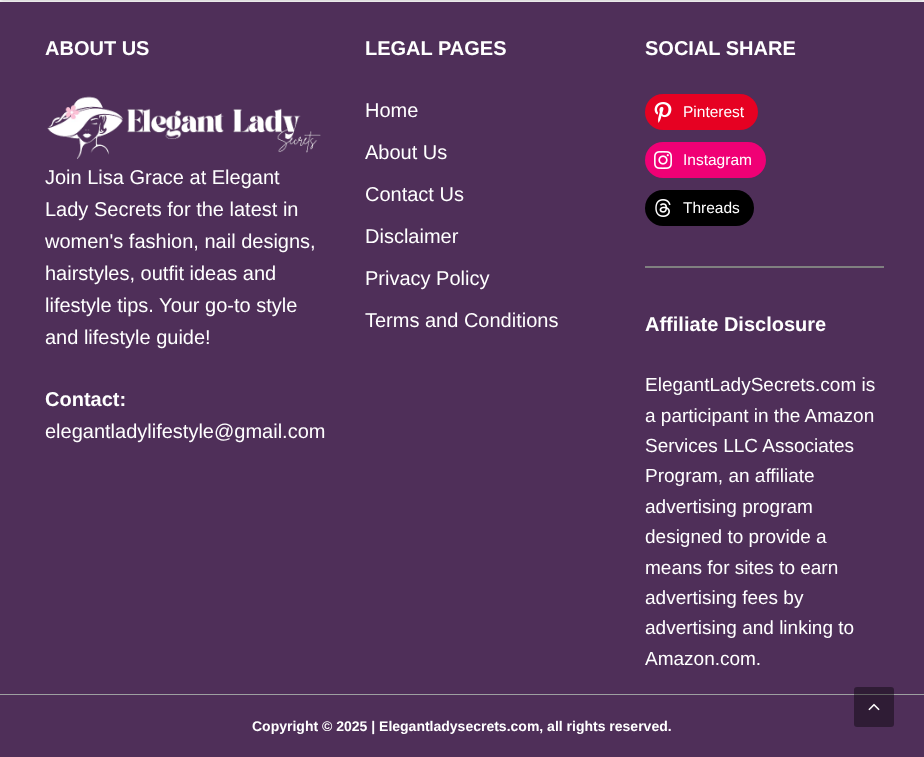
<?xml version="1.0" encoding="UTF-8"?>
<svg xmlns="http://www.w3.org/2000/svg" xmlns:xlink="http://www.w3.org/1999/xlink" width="924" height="757">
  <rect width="100%" height="100%" fill="#eeeeee" />
  <rect y="2" width="924" height="692" fill="#4f2f59" />
  <rect x="2" y="-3" width="920" height="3" fill="#000000" fill-opacity="0.2" filter="blur(1px)" />
  <image x="47" y="96" width="274" height="63" xlink:href="image1.png" />
  <rect x="645" y="94" width="113" height="36" rx="18" fill="#e60122" />
  <image x="654" y="102" width="18" height="21" xlink:href="image2.png" />
  <rect x="645" y="142" width="121" height="36" rx="18" fill="#f00075" />
  <image x="654" y="151" width="18" height="18" xlink:href="image3.png" />
  <rect x="645" y="190" width="109" height="36" rx="18" fill="#000000" />
  <image x="655" y="199" width="16" height="18" xlink:href="image4.png" />
  <rect x="645" y="266" width="239" height="2" fill="#808080" />
  <rect y="695" width="924" height="62" fill="#4f2f59" />
  <rect y="694" width="924" height="1" fill="#9ea0a1" />
  <rect x="854" y="687" width="40" height="40" rx="3" fill="#000000" fill-opacity="0.4" />
  <image x="868" y="703" width="12" height="8" xlink:href="image5.png" />
  <text x="45" y="55" style="font-family: Liberation Sans; font-size: 20px; font-weight: bold; fill: #ffffff">ABOUT US</text>
  <text x="45" y="184" style="font-family: Liberation Sans; font-size: 20px; fill: #ffffff">Join Lisa Grace at Elegant</text>
  <text x="45" y="216" style="font-family: Liberation Sans; font-size: 20px; fill: #ffffff">Lady Secrets for the latest in</text>
  <text x="45" y="248" style="font-family: Liberation Sans; font-size: 20px; fill: #ffffff">women's fashion, nail designs,</text>
  <text x="45" y="280" style="font-family: Liberation Sans; font-size: 20px; fill: #ffffff">hairstyles, outfit ideas and</text>
  <text x="45" y="312" style="font-family: Liberation Sans; font-size: 20px; fill: #ffffff">lifestyle tips. Your go-to style</text>
  <text x="45" y="344" style="font-family: Liberation Sans; font-size: 20px; fill: #ffffff">and lifestyle guide!</text>
  <text x="45" y="406" style="font-family: Liberation Sans; font-size: 20px; font-weight: bold; fill: #ffffff">Contact:</text>
  <text x="45" y="438" style="font-family: Liberation Sans; font-size: 20px; fill: #ffffff">elegantladylifestyle@gmail.com</text>
  <text x="365" y="55" style="font-family: Liberation Sans; font-size: 20px; font-weight: bold; fill: #ffffff">LEGAL PAGES</text>
  <text x="365" y="117" style="font-family: Liberation Sans; font-size: 20px; fill: #ffffff">Home</text>
  <text x="365" y="159" style="font-family: Liberation Sans; font-size: 20px; fill: #ffffff">About Us</text>
  <text x="365" y="201" style="font-family: Liberation Sans; font-size: 20px; fill: #ffffff">Contact Us</text>
  <text x="365" y="243" style="font-family: Liberation Sans; font-size: 20px; fill: #ffffff">Disclaimer</text>
  <text x="365" y="285" style="font-family: Liberation Sans; font-size: 20px; fill: #ffffff">Privacy Policy</text>
  <text x="365" y="327" style="font-family: Liberation Sans; font-size: 20px; fill: #ffffff">Terms and Conditions</text>
  <text x="645" y="55" style="font-family: Liberation Sans; font-size: 20px; font-weight: bold; fill: #ffffff">SOCIAL SHARE</text>
  <text x="683" y="117" style="font-family: Liberation Sans; font-size: 15.5px; fill: #ffffff">Pinterest</text>
  <text x="683" y="165" style="font-family: Liberation Sans; font-size: 15.5px; fill: #ffffff">Instagram</text>
  <text x="683" y="213" style="font-family: Liberation Sans; font-size: 15.5px; fill: #ffffff">Threads</text>
  <text x="645" y="331" style="font-family: Liberation Sans; font-size: 20px; font-weight: bold; fill: #ffffff">Affiliate Disclosure</text>
  <text x="645" y="391" style="font-family: Liberation Sans; font-size: 19px; fill: #ffffff">ElegantLadySecrets.com is</text>
  <text x="645" y="422" style="font-family: Liberation Sans; font-size: 19px; fill: #ffffff">a participant in the Amazon</text>
  <text x="645" y="452" style="font-family: Liberation Sans; font-size: 19px; fill: #ffffff">Services LLC Associates</text>
  <text x="645" y="482" style="font-family: Liberation Sans; font-size: 19px; fill: #ffffff">Program, an affiliate</text>
  <text x="645" y="513" style="font-family: Liberation Sans; font-size: 19px; fill: #ffffff">advertising program</text>
  <text x="645" y="543" style="font-family: Liberation Sans; font-size: 19px; fill: #ffffff">designed to provide a</text>
  <text x="645" y="574" style="font-family: Liberation Sans; font-size: 19px; fill: #ffffff">means for sites to earn</text>
  <text x="645" y="604" style="font-family: Liberation Sans; font-size: 19px; fill: #ffffff">advertising fees by</text>
  <text x="645" y="634" style="font-family: Liberation Sans; font-size: 19px; fill: #ffffff">advertising and linking to</text>
  <text x="645" y="665" style="font-family: Liberation Sans; font-size: 19px; fill: #ffffff">Amazon.com.</text>
  <text x="252" y="731" style="font-family: Liberation Sans; font-size: 14px; font-weight: bold; fill: #ffffff">Copyright © 2025 | Elegantladysecrets.com, all rights reserved.</text>
</svg>
